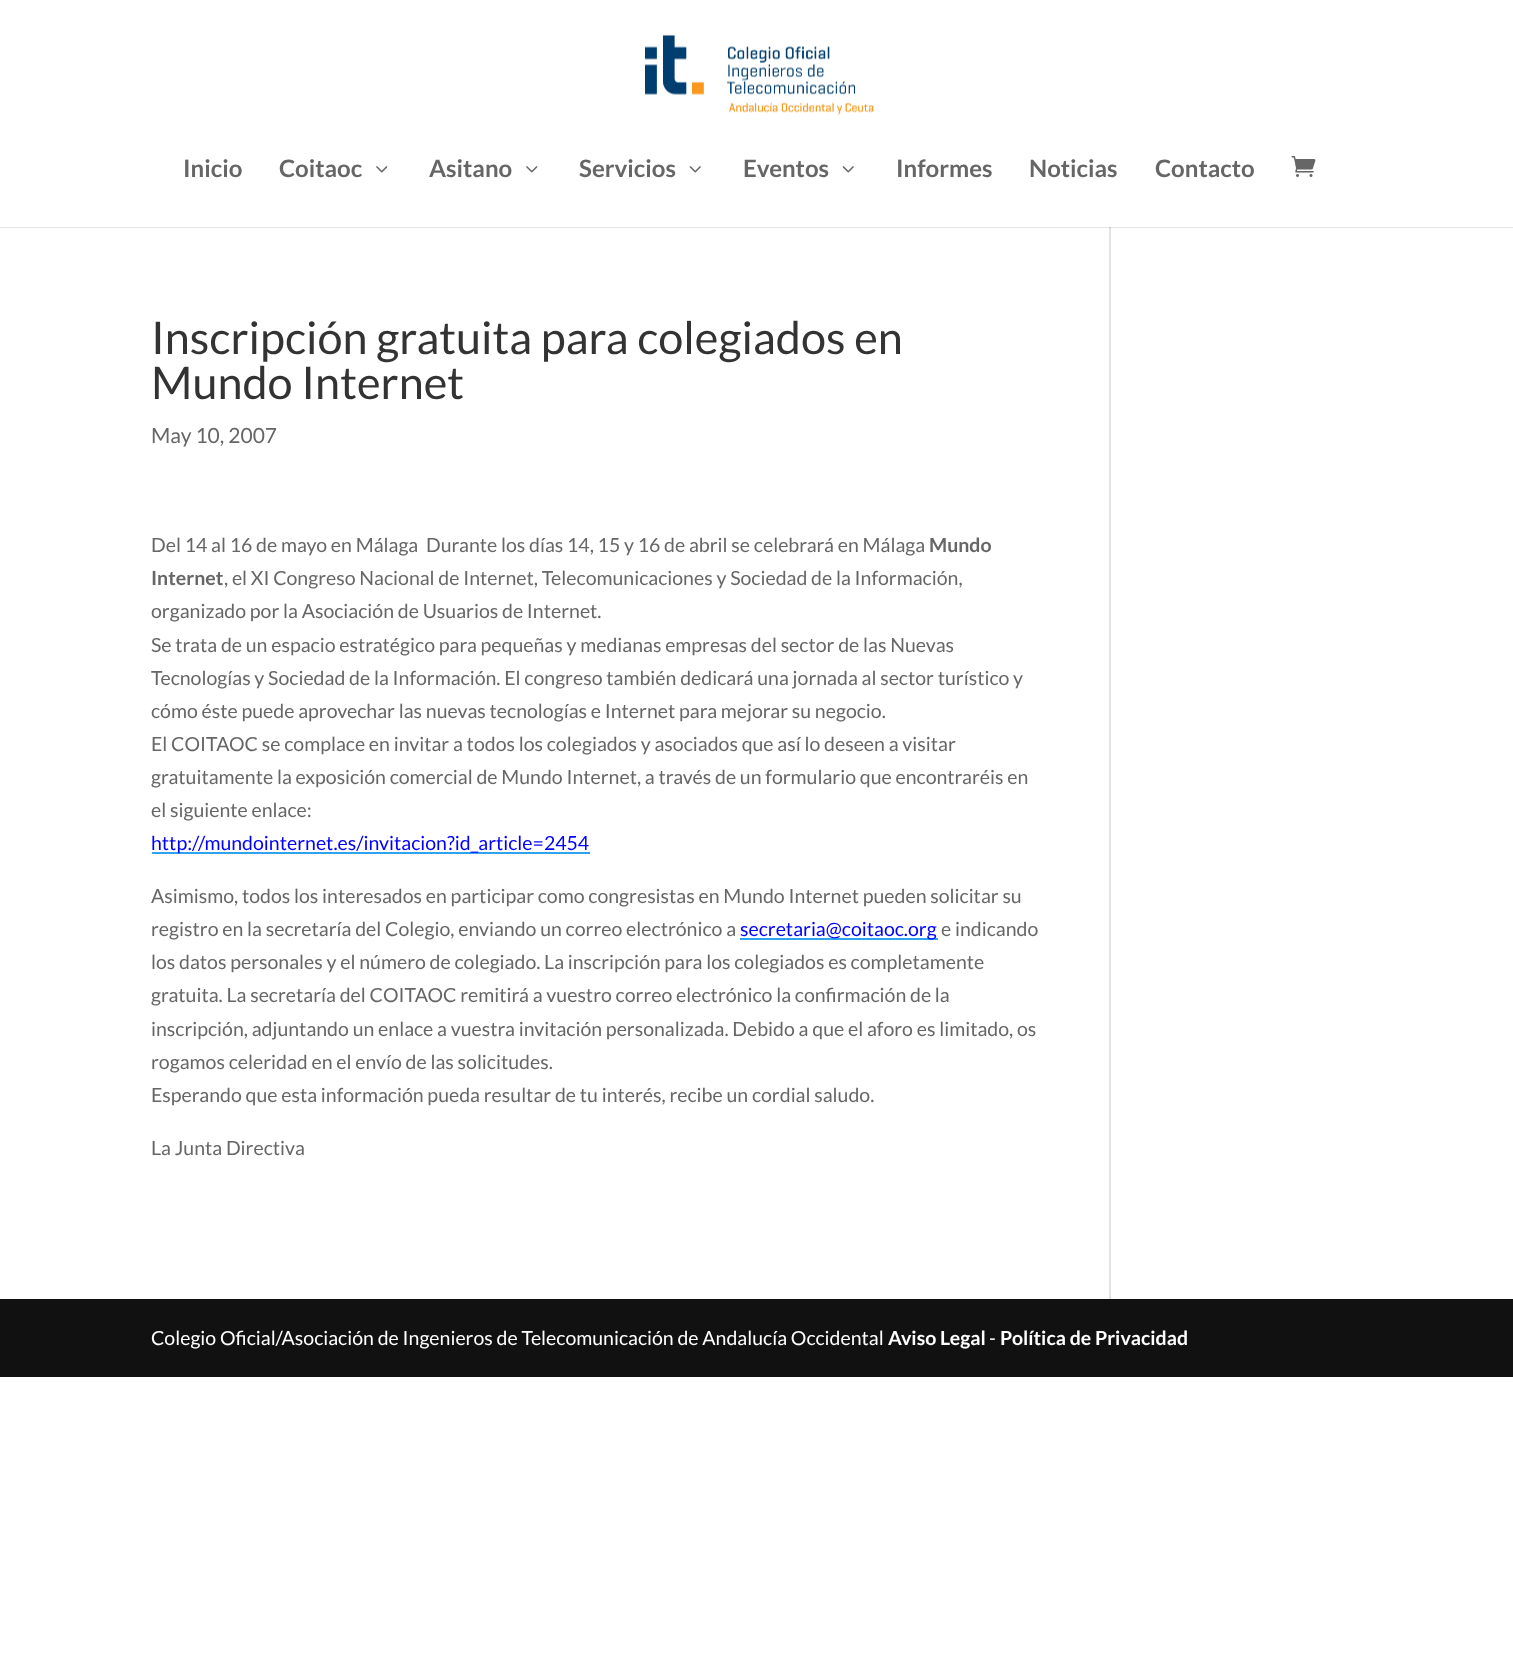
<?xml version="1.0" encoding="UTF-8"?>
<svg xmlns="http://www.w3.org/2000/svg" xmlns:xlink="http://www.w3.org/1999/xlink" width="1513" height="1656">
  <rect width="100%" height="100%" fill="#ffffff" />
  <rect x="1109" y="227" width="2" height="1072" fill="#e2e2e2" />
  <path d="M 0 226 v 2 h 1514 v -226 v 224 z" fill="#000000" fill-opacity="0.1" />
  <rect y="226" width="1513" height="1" fill="#ffffff" />
  <image x="645" y="34" width="229" height="81" xlink:href="image1.png" />
  <image x="376" y="166" width="12" height="7" xlink:href="image2.png" />
  <image x="526" y="166" width="12" height="7" xlink:href="image2.png" />
  <image x="689" y="166" width="12" height="7" xlink:href="image3.png" />
  <image x="842" y="166" width="12" height="7" xlink:href="image3.png" />
  <image x="1291" y="156" width="25" height="21" xlink:href="image4.png" />
  <rect x="152" y="852" width="438" height="2" fill="#2ea3f2" />
  <rect x="740" y="938" width="198" height="2" fill="#2ea3f2" />
  <rect y="1299" width="1513" height="78" fill="#111111" />
  <text x="183" y="177" style="font-family: Lato; font-size: 24px; font-weight: bold; fill: #666666">Inicio</text>
  <text x="279" y="177" style="font-family: Lato; font-size: 24px; font-weight: bold; fill: #666666">Coitaoc</text>
  <text x="429" y="177" style="font-family: Lato; font-size: 24px; font-weight: bold; fill: #666666">Asitano</text>
  <text x="579" y="177" style="font-family: Lato; font-size: 24px; font-weight: bold; fill: #666666">Servicios</text>
  <text x="743" y="177" style="font-family: Lato; font-size: 24px; font-weight: bold; fill: #666666">Eventos</text>
  <text x="896" y="177" style="font-family: Lato; font-size: 24px; font-weight: bold; fill: #666666">Informes</text>
  <text x="1029" y="177" style="font-family: Lato; font-size: 24px; font-weight: bold; fill: #666666">Noticias</text>
  <text x="1155" y="177" style="font-family: Lato; font-size: 24px; font-weight: bold; fill: #666666">Contacto</text>
  <text x="151" y="354" style="font-family: Lato; font-size: 45px; fill: #333333">Inscripción gratuita para colegiados en</text>
  <text x="151" y="399" style="font-family: Lato; font-size: 45px; fill: #333333">Mundo Internet</text>
  <text x="151" y="443" style="font-family: Lato; font-size: 21px; fill: #666666">May 10, 2007</text>
  <text x="151" y="552" style="font-family: Lato; font-size: 19.5px; fill: #666666">Del 14 al 16 de mayo en Málaga</text>
  <text x="426" y="552" style="font-family: Lato; font-size: 19.5px; fill: #666666">Durante los días 14, 15 y 16 de abril se celebrará en Málaga</text>
  <text x="929" y="552" style="font-family: Lato; font-size: 19.5px; font-weight: bold; fill: #666666">Mundo</text>
  <text x="151" y="585" style="font-family: Lato; font-size: 19.5px; font-weight: bold; fill: #666666">Internet</text>
  <text x="224" y="585" style="font-family: Lato; font-size: 19.5px; fill: #666666">, el XI Congreso Nacional de Internet, Telecomunicaciones y Sociedad de la Información,</text>
  <text x="151" y="618" style="font-family: Lato; font-size: 19.5px; fill: #666666">organizado por la Asociación de Usuarios de Internet.</text>
  <text x="151" y="652" style="font-family: Lato; font-size: 19.5px; fill: #666666">Se trata de un espacio estratégico para pequeñas y medianas empresas del sector de las Nuevas</text>
  <text x="151" y="685" style="font-family: Lato; font-size: 19.5px; fill: #666666">Tecnologías y Sociedad de la Información. El congreso también dedicará una jornada al sector turístico y</text>
  <text x="151" y="718" style="font-family: Lato; font-size: 19.5px; fill: #666666">cómo éste puede aprovechar las nuevas tecnologías e Internet para mejorar su negocio.</text>
  <text x="151" y="751" style="font-family: Lato; font-size: 19.5px; fill: #666666">El COITAOC se complace en invitar a todos los colegiados y asociados que así lo deseen a visitar</text>
  <text x="151" y="784" style="font-family: Lato; font-size: 19.5px; fill: #666666">gratuitamente la exposición comercial de Mundo Internet, a través de un formulario que encontraréis en</text>
  <text x="151" y="817" style="font-family: Lato; font-size: 19.5px; fill: #666666">el siguiente enlace:</text>
  <text x="151" y="850" style="font-family: Lato; font-size: 19.5px; fill: #0000ff">http://mundointernet.es/invitacion?id_article=2454</text>
  <text x="151" y="903" style="font-family: Lato; font-size: 19.5px; fill: #666666">Asimismo, todos los interesados en participar como congresistas en Mundo Internet pueden solicitar su</text>
  <text x="151" y="936" style="font-family: Lato; font-size: 19.5px; fill: #666666">registro en la secretaría del Colegio, enviando un correo electrónico a</text>
  <text x="740" y="936" style="font-family: Lato; font-size: 19.5px; fill: #0000ff">secretaria@coitaoc.org</text>
  <text x="941" y="936" style="font-family: Lato; font-size: 19.5px; fill: #666666">e indicando</text>
  <text x="151" y="969" style="font-family: Lato; font-size: 19.5px; fill: #666666">los datos personales y el número de colegiado. La inscripción para los colegiados es completamente</text>
  <text x="151" y="1002" style="font-family: Lato; font-size: 19.5px; fill: #666666">gratuita. La secretaría del COITAOC remitirá a vuestro correo electrónico la confirmación de la</text>
  <text x="151" y="1036" style="font-family: Lato; font-size: 19.5px; fill: #666666">inscripción, adjuntando un enlace a vuestra invitación personalizada. Debido a que el aforo es limitado, os</text>
  <text x="151" y="1069" style="font-family: Lato; font-size: 19.5px; fill: #666666">rogamos celeridad en el envío de las solicitudes.</text>
  <text x="151" y="1102" style="font-family: Lato; font-size: 19.5px; fill: #666666">Esperando que esta información pueda resultar de tu interés, recibe un cordial saludo.</text>
  <text x="151" y="1155" style="font-family: Lato; font-size: 19.5px; fill: #666666">La Junta Directiva</text>
  <text x="151" y="1345" style="font-family: Lato; font-size: 19.5px; fill: #ffffff">Colegio Oficial/Asociación de Ingenieros de Telecomunicación de Andalucía Occidental</text>
  <text x="888" y="1345" style="font-family: Lato; font-size: 19.5px; font-weight: bold; fill: #ffffff">Aviso Legal</text>
  <text x="989" y="1345" style="font-family: Lato; font-size: 19.5px; fill: #ffffff">-</text>
  <text x="1000" y="1345" style="font-family: Lato; font-size: 19.5px; font-weight: bold; fill: #ffffff">Política de Privacidad</text>
</svg>
